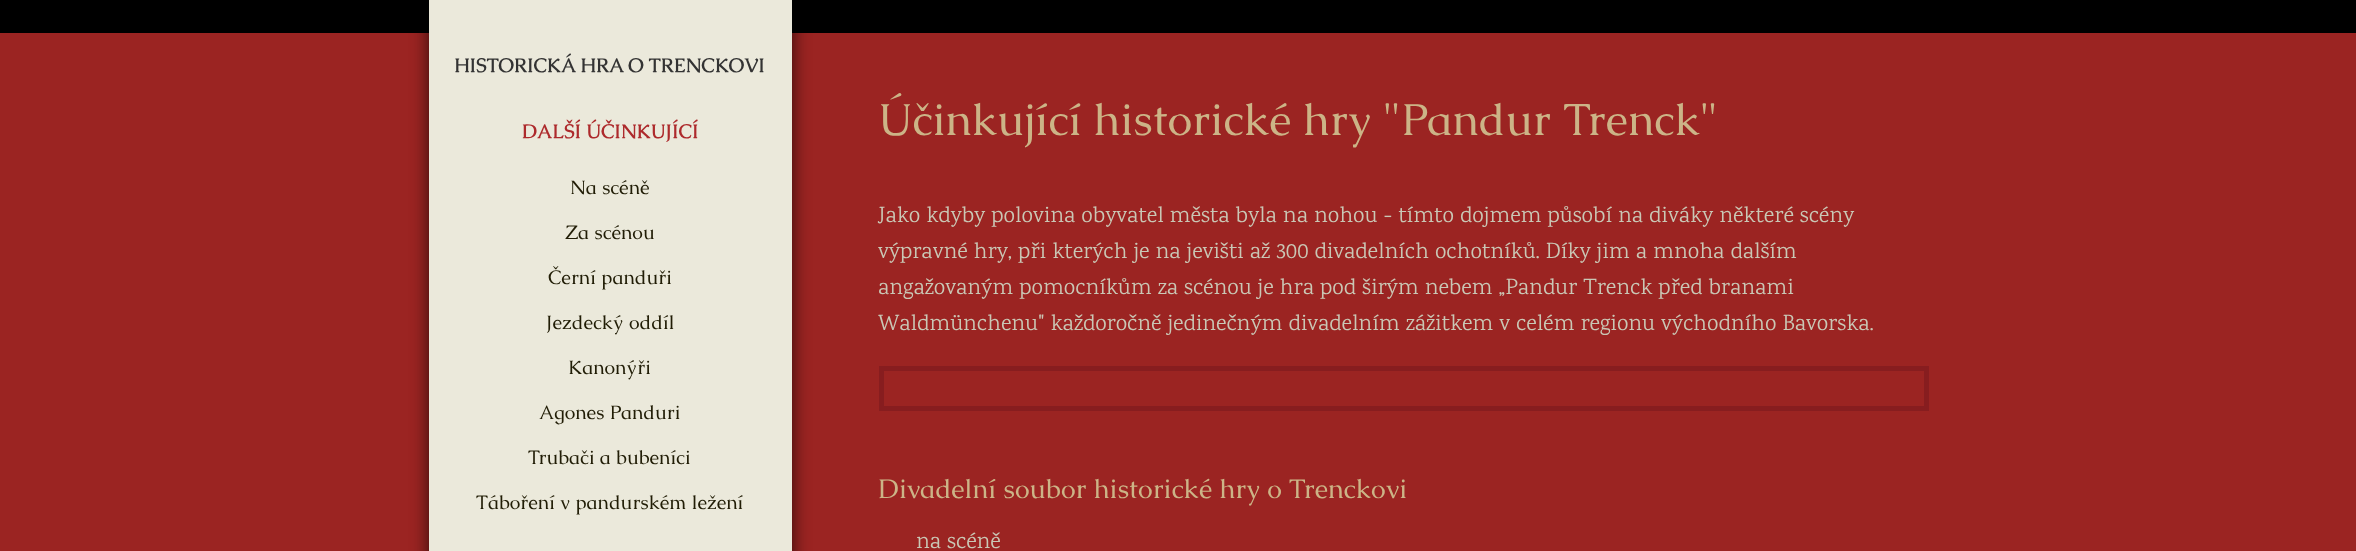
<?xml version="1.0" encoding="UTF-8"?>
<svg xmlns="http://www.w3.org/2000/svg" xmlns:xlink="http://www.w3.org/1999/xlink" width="2356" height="551">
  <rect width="100%" height="100%" fill="#9b2422" />
  <rect width="2356" height="33" fill="#000000" />
  <rect x="429" width="363" height="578" fill="#000000" fill-opacity="0.7" filter="blur(9px)" />
  <rect x="429" width="363" height="551" fill="#ebe9db" />
  <rect x="881.5" y="368.5" width="1045" height="40" fill="none" stroke="#871d1f" stroke-width="5" />
  <text x="454" y="72" style="font-family: Caudex; font-size: 19.5px; font-weight: bold; fill: #333333">HISTORICKÁ HRA O TRENCKOVI</text>
  <text x="522" y="138" style="font-family: Caudex; font-size: 19.5px; font-weight: bold; fill: #ad2a2c">DALŠÍ ÚČINKUJÍCÍ</text>
  <text x="570" y="194" style="font-family: Caudex; font-size: 19.5px; fill: #211d06">Na scéně</text>
  <text x="565" y="239" style="font-family: Caudex; font-size: 19.5px; fill: #211d06">Za scénou</text>
  <text x="548" y="284" style="font-family: Caudex; font-size: 19.5px; fill: #211d06">Černí panduři</text>
  <text x="546" y="329" style="font-family: Caudex; font-size: 19.5px; fill: #211d06">Jezdecký oddíl</text>
  <text x="568" y="374" style="font-family: Caudex; font-size: 19.5px; fill: #211d06">Kanonýři</text>
  <text x="539" y="419" style="font-family: Caudex; font-size: 19.5px; fill: #211d06">Agones Panduri</text>
  <text x="528" y="464" style="font-family: Caudex; font-size: 19.5px; fill: #211d06">Trubači a bubeníci</text>
  <text x="476" y="509" style="font-family: Caudex; font-size: 19.5px; fill: #211d06">Táboření v pandurském ležení</text>
  <text x="878" y="135" style="font-family: Caudex; font-size: 45px; fill: #ccb487">Účinkující historické hry "Pandur Trenck"</text>
  <text x="878" y="222" style="font-family: Karma; font-size: 22.5px; fill: #cac7b5">Jako kdyby polovina obyvatel města byla na nohou - tímto dojmem působí na diváky některé scény</text>
  <text x="878" y="258" style="font-family: Karma; font-size: 22.5px; fill: #cac7b5">výpravné hry, při kterých je na jevišti až 300 divadelních ochotníků. Díky jim a mnoha dalším</text>
  <text x="878" y="294" style="font-family: Karma; font-size: 22.5px; fill: #cac7b5">angažovaným pomocníkům za scénou je hra pod širým nebem „Pandur Trenck před branami</text>
  <text x="878" y="330" style="font-family: Karma; font-size: 22.5px; fill: #cac7b5">Waldmünchenu" každoročně jedinečným divadelním zážitkem v celém regionu východního Bavorska.</text>
  <text x="878" y="498" style="font-family: Caudex; font-size: 27px; fill: #ccb487">Divadelní soubor historické hry o Trenckovi</text>
  <text x="916" y="548" style="font-family: Karma; font-size: 22.5px; fill: #cac7b5">na scéně</text>
</svg>
